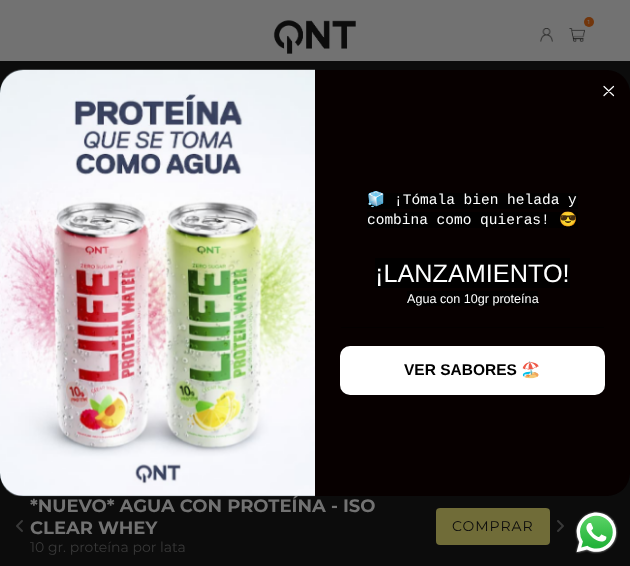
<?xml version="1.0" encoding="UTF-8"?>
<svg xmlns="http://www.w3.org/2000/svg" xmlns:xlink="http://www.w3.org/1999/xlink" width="630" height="566">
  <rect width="100%" height="100%" fill="#0c0c0c" />
  <rect width="630" height="61" fill="#727272" />
  <image x="273" y="20" width="83" height="34" xlink:href="image1.png" />
  <circle cx="589" cy="22" r="5" fill="#72360c" />
  <image x="569" y="28" width="16" height="14" xlink:href="image2.png" />
  <image x="540" y="28" width="13" height="14" xlink:href="image3.png" />
  <rect y="70" width="630" height="426" rx="23" fill="#070000" />
  <path d="M 604 86.5 l 9.5 9 m -9.5 0 l 9.5 -9 z" fill="none" stroke="#ffffff" stroke-width="1.2" stroke-linecap="round" stroke-linejoin="round" />
  <path d="M 23 70 h 292 v 426 h -292 c -12.5 0 -23 -10.5 -23 -23 v -380 c 0 -12.5 10.5 -23 23 -23 z" fill="#041f28" />
  <rect x="367" y="193" width="211" height="16" fill="#010000" />
  <rect x="367" y="212" width="211" height="16" fill="#010000" />
  <rect x="375" y="258" width="195" height="30" fill="#010000" />
  <rect x="407" y="291" width="131" height="15" fill="#010000" />
  <rect x="341" y="327" width="263" height="1" fill="#030000" />
  <rect x="340" y="346" width="265" height="49" rx="10" fill="#ffffff" />
  <rect x="436" y="508" width="114" height="37" rx="4" fill="#706c38" />
  <image x="16" y="520" width="7" height="12" xlink:href="image5.png" />
  <image x="557" y="520" width="7" height="12" xlink:href="image6.png" />
  <image x="611" y="520" width="3" height="3" xlink:href="image7.png" />
  <image x="575" y="511" width="43" height="43" xlink:href="image8.png" />
  <text x="587" y="24" style="font-family: Roboto; font-size: 6px; fill: #727272">1</text>
  <text x="367" y="204" style="font-family: Noto Color Emoji; font-size: 14.5px; fill: #ffffff">🧊</text>
  <text x="394" y="204" style="font-family: Liberation Mono; font-size: 14.5px; fill: #ffffff">¡Tómala bien helada y</text>
  <text x="367" y="224" style="font-family: Liberation Mono; font-size: 14.5px; fill: #ffffff">combina como quieras!</text>
  <text x="559" y="224" style="font-family: Noto Color Emoji; font-size: 14.5px; fill: #ffffff">😎</text>
  <text x="375" y="282" style="font-family: Liberation Sans; font-size: 25.25px; fill: #ffffff">¡LANZAMIENTO!</text>
  <text x="407" y="303" style="font-family: Liberation Sans; font-size: 12.6px; fill: #ffffff">Agua con 10gr proteína</text>
  <text x="404" y="375" style="font-family: Liberation Sans; font-size: 15.5px; font-weight: bold; fill: #000000">VER SABORES</text>
  <text x="521" y="375" style="font-family: Noto Color Emoji; font-size: 15.5px; font-weight: bold; fill: #000000">🏖️</text>
  <text x="30" y="512" style="font-family: Montserrat; font-size: 18px; font-weight: bold; fill: #727272">*NUEVO* AGUA CON PROTEÍNA - ISO</text>
  <image x="0" y="69" width="315" height="428" xlink:href="image4.png" />
  <text x="30" y="534" style="font-family: Montserrat; font-size: 18px; font-weight: bold; fill: #727272">CLEAR WHEY</text>
  <text x="30" y="552" style="font-family: Montserrat; font-size: 14px; fill: #393939">10 gr. proteína por lata</text>
  <text x="452" y="531" style="font-family: Montserrat; font-size: 14px; letter-spacing: 1px; fill: #0c0c0c">COMPRAR</text>
</svg>
